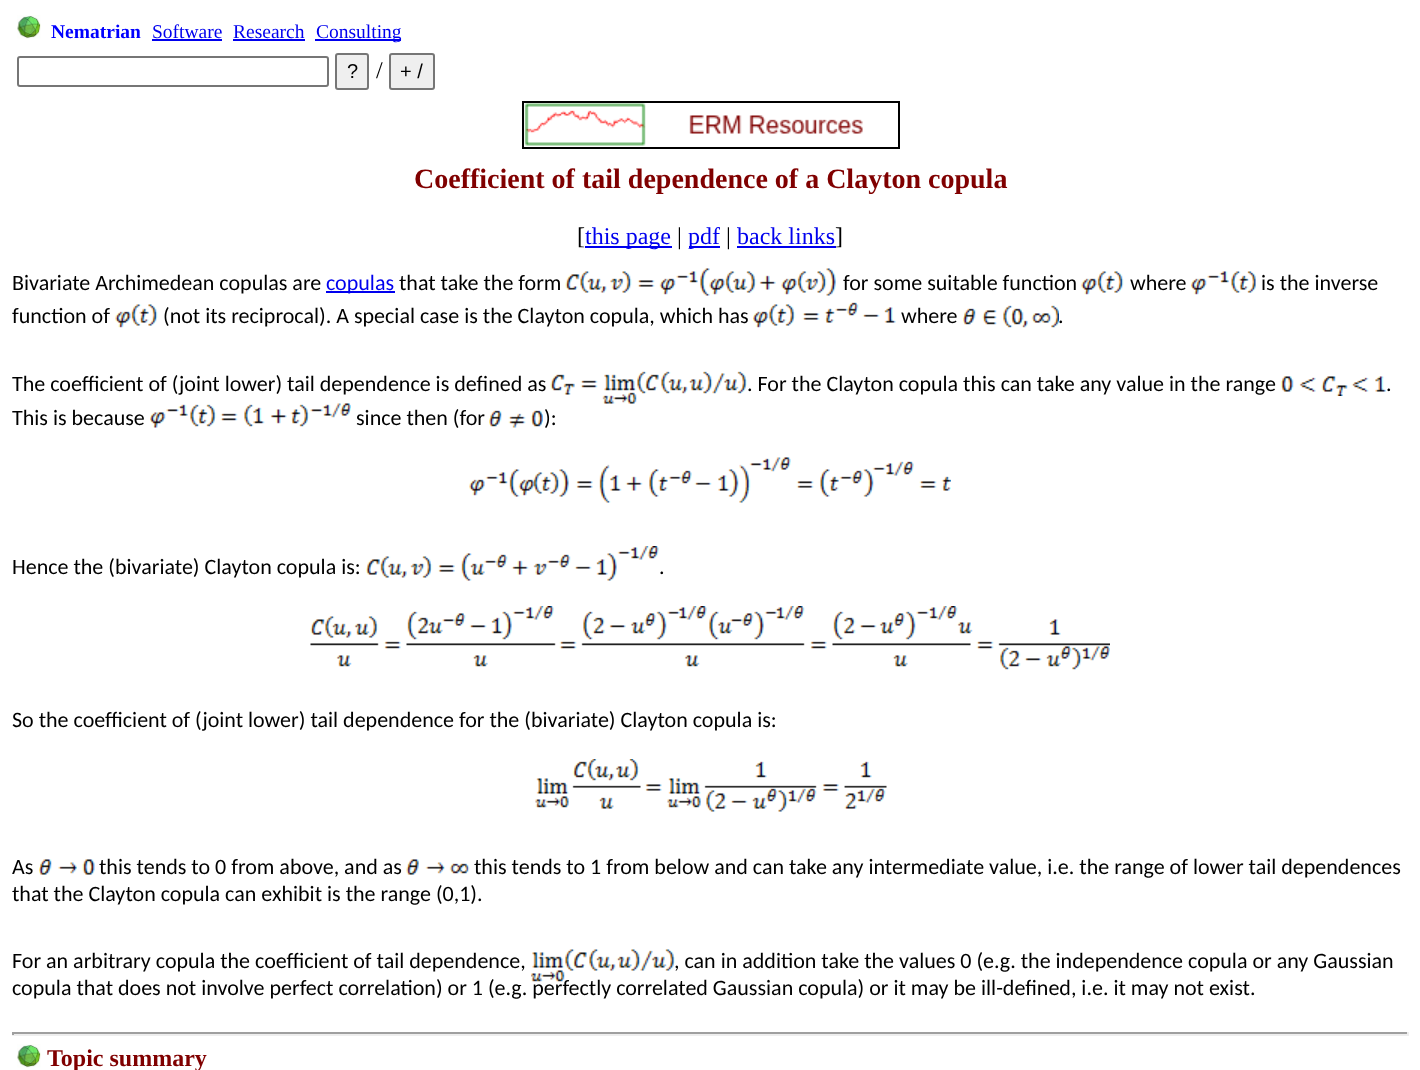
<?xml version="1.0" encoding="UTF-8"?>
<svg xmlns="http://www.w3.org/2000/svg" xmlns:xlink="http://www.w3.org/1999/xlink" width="1420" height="1070">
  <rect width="100%" height="100%" fill="#ffffff" />
  <image x="17" y="15" width="24" height="24" xlink:href="image1.png" />
  <rect x="152" y="39" width="70" height="2" fill="#0000ee" />
  <rect x="233" y="39" width="72" height="2" fill="#0000ee" />
  <rect x="315" y="39" width="86" height="2" fill="#0000ee" />
  <rect x="18" y="57" width="310" height="29" rx="2" fill="none" stroke="#767676" stroke-width="2" />
  <rect x="336" y="54" width="32" height="35" rx="2" fill="#efefef" stroke="#767676" stroke-width="2" />
  <rect x="390" y="54" width="44" height="35" rx="2" fill="#efefef" stroke="#767676" stroke-width="2" />
  <rect x="523" y="102" width="376" height="46" fill="none" stroke="#000000" stroke-width="2" />
  <image x="524" y="103" width="339" height="43" xlink:href="image2.png" />
  <rect x="585" y="246" width="87" height="2" fill="#0000ee" />
  <rect x="689" y="246" width="31" height="2" fill="#0000ee" />
  <rect x="737" y="246" width="99" height="2" fill="#0000ee" />
  <rect x="326" y="291" width="69" height="2" fill="#0000ee" />
  <image x="565" y="268" width="271" height="28" xlink:href="image3.png" />
  <image x="1081" y="271" width="43" height="24" xlink:href="image4.png" />
  <image x="1191" y="271" width="65" height="24" xlink:href="image5.png" />
  <image x="115" y="304" width="43" height="24" xlink:href="image4.png" />
  <image x="753" y="302" width="143" height="26" xlink:href="image6.png" />
  <image x="963" y="305" width="96" height="23" xlink:href="image7.png" />
  <image x="550" y="371" width="197" height="33" xlink:href="image8.png" />
  <image x="1281" y="376" width="105" height="20" xlink:href="image9.png" />
  <image x="150" y="403" width="201" height="25" xlink:href="image10.png" />
  <image x="489" y="410" width="54" height="18" xlink:href="image11.png" />
  <image x="469" y="457" width="482" height="46" xlink:href="image12.png" />
  <image x="366" y="546" width="293" height="35" xlink:href="image13.png" />
  <image x="310" y="606" width="800" height="64" xlink:href="image14.png" />
  <image x="535" y="759" width="352" height="53" xlink:href="image15.png" />
  <image x="39" y="859" width="56" height="16" xlink:href="image16.png" />
  <image x="406" y="859" width="64" height="16" xlink:href="image17.png" />
  <rect x="12" y="1032" width="1397" height="2" fill="#9f9f9f" />
  <rect x="1407" y="1032" width="2" height="3" fill="#eeeeee" />
  <rect x="12" y="1034" width="1397" height="2" fill="#eeeeee" />
  <rect x="12" y="1032" width="2" height="3" fill="#9f9f9f" />
  <image x="17" y="1044" width="24" height="24" xlink:href="image1.png" />
  <text x="51" y="38" style="font-family: Liberation Serif; font-size: 19.5px; font-weight: bold; fill: #0000ff">Nematrian</text>
  <text x="152" y="38" style="font-family: Liberation Serif; font-size: 19.5px; fill: #0000ee">Software</text>
  <text x="233" y="38" style="font-family: Liberation Serif; font-size: 19.5px; fill: #0000ee">Research</text>
  <text x="316" y="38" style="font-family: Liberation Serif; font-size: 19.5px; fill: #0000ee">Consulting</text>
  <text x="347" y="78" style="font-family: Liberation Sans; font-size: 20px; fill: #000000">?</text>
  <text x="376" y="78" style="font-family: Liberation Serif; font-size: 24px; fill: #000000">/</text>
  <text x="400" y="78" style="font-family: Liberation Sans; font-size: 20px; fill: #000000">+ /</text>
  <text x="414" y="188" style="font-family: Liberation Serif; font-size: 28px; font-weight: bold; fill: #800000">Coefficient of tail dependence of a Clayton copula</text>
  <text x="577" y="244" style="font-family: Liberation Serif; font-size: 24px; fill: #000000">[</text>
  <text x="585" y="244" style="font-family: Liberation Serif; font-size: 24px; fill: #0000ee">this page</text>
  <text x="677" y="244" style="font-family: Liberation Serif; font-size: 24px; fill: #000000">|</text>
  <text x="688" y="244" style="font-family: Liberation Serif; font-size: 24px; fill: #0000ee">pdf</text>
  <text x="726" y="244" style="font-family: Liberation Serif; font-size: 24px; fill: #000000">|</text>
  <text x="737" y="244" style="font-family: Liberation Serif; font-size: 24px; fill: #0000ee">back links</text>
  <text x="835" y="244" style="font-family: Liberation Serif; font-size: 24px; fill: #000000">]</text>
  <text x="12" y="290" style="font-family: Carlito; font-size: 22px; fill: #000000">Bivariate Archimedean copulas are</text>
  <text x="326" y="290" style="font-family: Carlito; font-size: 22px; fill: #0000ee">copulas</text>
  <text x="399" y="290" style="font-family: Carlito; font-size: 22px; fill: #000000">that take the form</text>
  <text x="843" y="290" style="font-family: Carlito; font-size: 22px; fill: #000000">for some suitable function</text>
  <text x="1130" y="290" style="font-family: Carlito; font-size: 22px; fill: #000000">where</text>
  <text x="1261" y="290" style="font-family: Carlito; font-size: 22px; fill: #000000">is the inverse</text>
  <text x="12" y="323" style="font-family: Carlito; font-size: 22px; fill: #000000">function of</text>
  <text x="163" y="323" style="font-family: Carlito; font-size: 22px; fill: #000000">(not its reciprocal). A special case is the Clayton copula, which has</text>
  <text x="901" y="323" style="font-family: Carlito; font-size: 22px; fill: #000000">where</text>
  <text x="1058" y="323" style="font-family: Carlito; font-size: 22px; fill: #000000">.</text>
  <text x="12" y="391" style="font-family: Carlito; font-size: 22px; fill: #000000">The coefficient of (joint lower) tail dependence is defined as</text>
  <text x="747" y="391" style="font-family: Carlito; font-size: 22px; fill: #000000">. For the Clayton copula this can take any value in the range</text>
  <text x="1386" y="391" style="font-family: Carlito; font-size: 22px; fill: #000000">.</text>
  <text x="12" y="425" style="font-family: Carlito; font-size: 22px; fill: #000000">This is because</text>
  <text x="356" y="425" style="font-family: Carlito; font-size: 22px; fill: #000000">since then (for</text>
  <text x="544" y="425" style="font-family: Carlito; font-size: 22px; fill: #000000">):</text>
  <text x="12" y="574" style="font-family: Carlito; font-size: 22px; fill: #000000">Hence the (bivariate) Clayton copula is:</text>
  <text x="659" y="574" style="font-family: Carlito; font-size: 22px; fill: #000000">.</text>
  <text x="12" y="727" style="font-family: Carlito; font-size: 22px; fill: #000000">So the coefficient of (joint lower) tail dependence for the (bivariate) Clayton copula is:</text>
  <text x="12" y="874" style="font-family: Carlito; font-size: 22px; fill: #000000">As</text>
  <text x="99" y="874" style="font-family: Carlito; font-size: 22px; fill: #000000">this tends to 0 from above, and as</text>
  <text x="474" y="874" style="font-family: Carlito; font-size: 22px; fill: #000000">this tends to 1 from below and can take any intermediate value, i.e. the range of lower tail dependences</text>
  <text x="12" y="901" style="font-family: Carlito; font-size: 22px; fill: #000000">that the Clayton copula can exhibit is the range (0,1).</text>
  <text x="12" y="968" style="font-family: Carlito; font-size: 22px; fill: #000000">For an arbitrary copula the coefficient of tail dependence,</text>
  <text x="674" y="968" style="font-family: Carlito; font-size: 22px; fill: #000000">, can in addition take the values 0 (e.g. the independence copula or any Gaussian</text>
  <text x="12" y="995" style="font-family: Carlito; font-size: 22px; fill: #000000">copula that does not involve perfect correlation) or 1 (e.g. perfectly correlated Gaussian copula) or it may be ill-defined, i.e. it may not exist.</text>
  <image x="531" y="949" width="144" height="33" xlink:href="image18.png" />
  <text x="47" y="1066" style="font-family: Liberation Serif; font-size: 24px; font-weight: bold; fill: #800000">Topic summary</text>
</svg>
